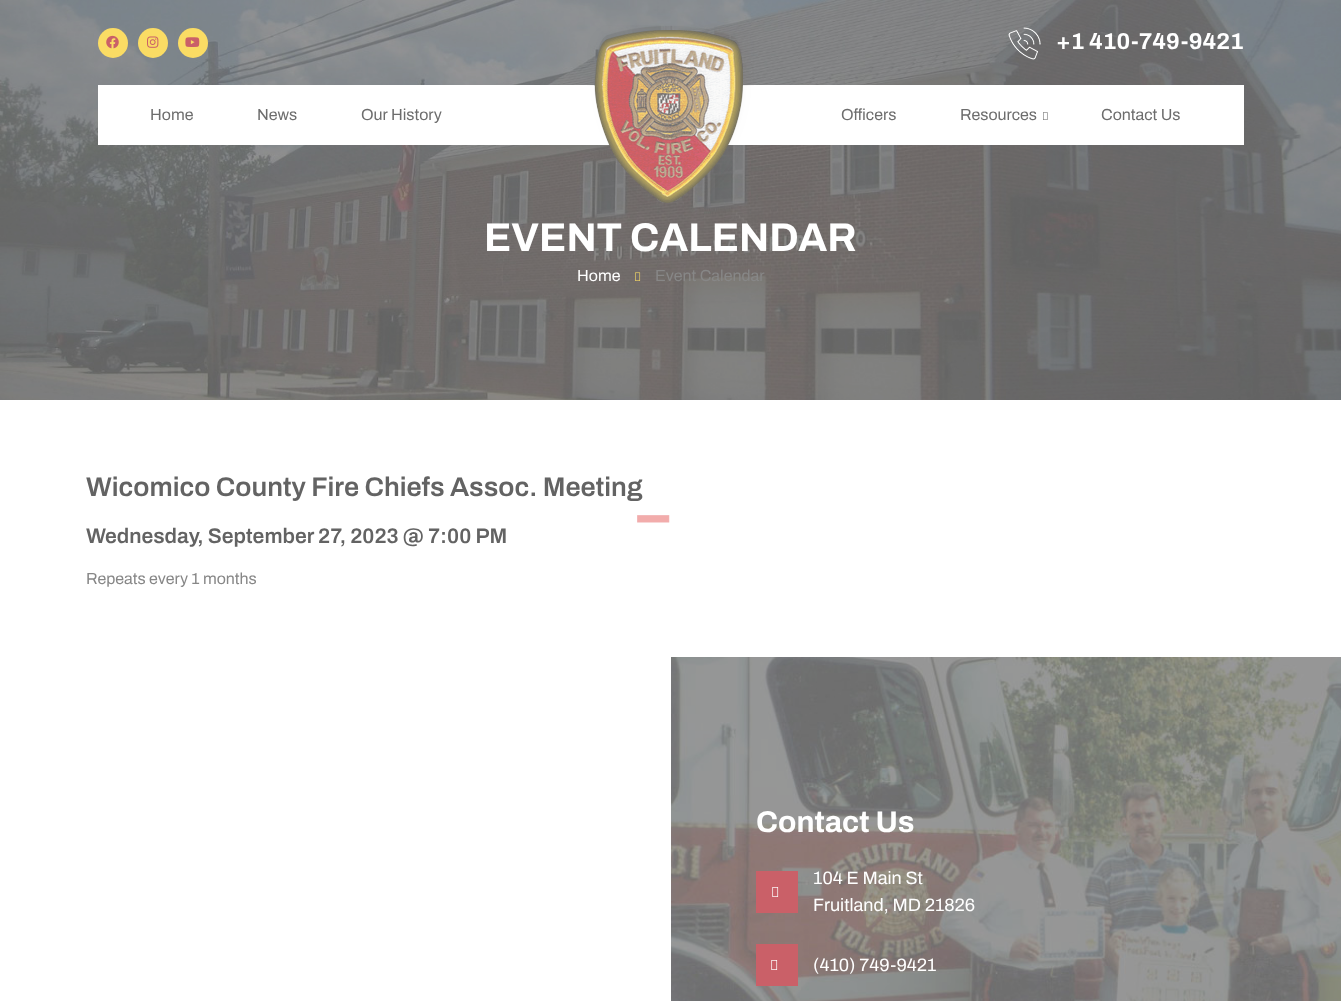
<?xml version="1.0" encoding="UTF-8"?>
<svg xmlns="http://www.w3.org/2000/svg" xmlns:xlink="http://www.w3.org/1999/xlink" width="1341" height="1001">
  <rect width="100%" height="100%" fill="#ffffff" />
  <image x="0" y="0" width="1341" height="400" xlink:href="image7.png" />
  <circle cx="113" cy="43" r="15" fill="#fadc64" />
  <image x="106" y="35" width="13" height="14" xlink:href="image1.png" />
  <circle cx="153" cy="43" r="15" fill="#fadc64" />
  <image x="147" y="36" width="12" height="12" xlink:href="image2.png" />
  <circle cx="193" cy="43" r="15" fill="#fadc64" />
  <image x="185" y="37" width="15" height="10" xlink:href="image3.png" />
  <image x="1008" y="27" width="33" height="33" xlink:href="image4.png" />
  <rect x="98" y="85" width="1146" height="60" fill="#ffffff" />
  <image x="587" y="25" width="167" height="181" xlink:href="image5.png" />
  <image x="1043" y="112" width="5" height="8" xlink:href="image6.png" />
  <image x="635" y="272" width="6" height="9" xlink:href="image8.png" />
  <image x="637" y="515" width="33" height="8" xlink:href="image9.png" />
  <image x="671" y="657" width="670" height="344" xlink:href="image10.png" />
  <rect x="756" y="871" width="42" height="42" fill="#ca6068" />
  <image x="772" y="887" width="7" height="10" xlink:href="image11.png" />
  <rect x="756" y="944" width="42" height="42" fill="#ca6068" />
  <image x="771" y="960" width="7" height="10" xlink:href="image11.png" />
  <text x="1056" y="49" style="font-family: Archivo; font-size: 23px; font-weight: bold; fill: #ffffff">+1 410-749-9421</text>
  <text x="150" y="120" style="font-family: Archivo; font-size: 16px; fill: #6d6d6d">Home</text>
  <text x="257" y="120" style="font-family: Archivo; font-size: 16px; fill: #6d6d6d">News</text>
  <text x="361" y="120" style="font-family: Archivo; font-size: 16px; fill: #6d6d6d">Our History</text>
  <text x="841" y="120" style="font-family: Archivo; font-size: 16px; fill: #6d6d6d">Officers</text>
  <text x="960" y="120" style="font-family: Archivo; font-size: 16px; fill: #6d6d6d">Resources</text>
  <text x="1101" y="120" style="font-family: Archivo; font-size: 16px; fill: #6d6d6d">Contact Us</text>
  <text x="484" y="251" style="font-family: Archivo; font-size: 40px; font-weight: bold; fill: #ffffff">EVENT CALENDAR</text>
  <text x="577" y="281" style="font-family: Archivo; font-size: 16px; fill: #ffffff">Home</text>
  <text x="655" y="281" style="font-family: Archivo; font-size: 16px; fill: #878787">Event Calendar</text>
  <text x="86" y="496" style="font-family: Archivo; font-size: 27px; font-weight: 600; fill: #636363">Wicomico County Fire Chiefs Assoc. Meeting</text>
  <text x="86" y="543" style="font-family: Archivo; font-size: 21px; font-weight: 600; fill: #636363">Wednesday, September 27, 2023 @ 7:00 PM</text>
  <text x="86" y="584" style="font-family: Archivo; font-size: 16px; fill: #878787">Repeats every 1 months</text>
  <text x="756" y="832" style="font-family: Archivo; font-size: 30px; font-weight: bold; fill: #ffffff">Contact Us</text>
  <text x="813" y="884" style="font-family: Archivo; font-size: 18px; fill: #ffffff">104 E Main St</text>
  <text x="813" y="911" style="font-family: Archivo; font-size: 18px; fill: #ffffff">Fruitland, MD 21826</text>
  <text x="813" y="971" style="font-family: Archivo; font-size: 18px; fill: #ffffff">(410) 749-9421</text>
</svg>
